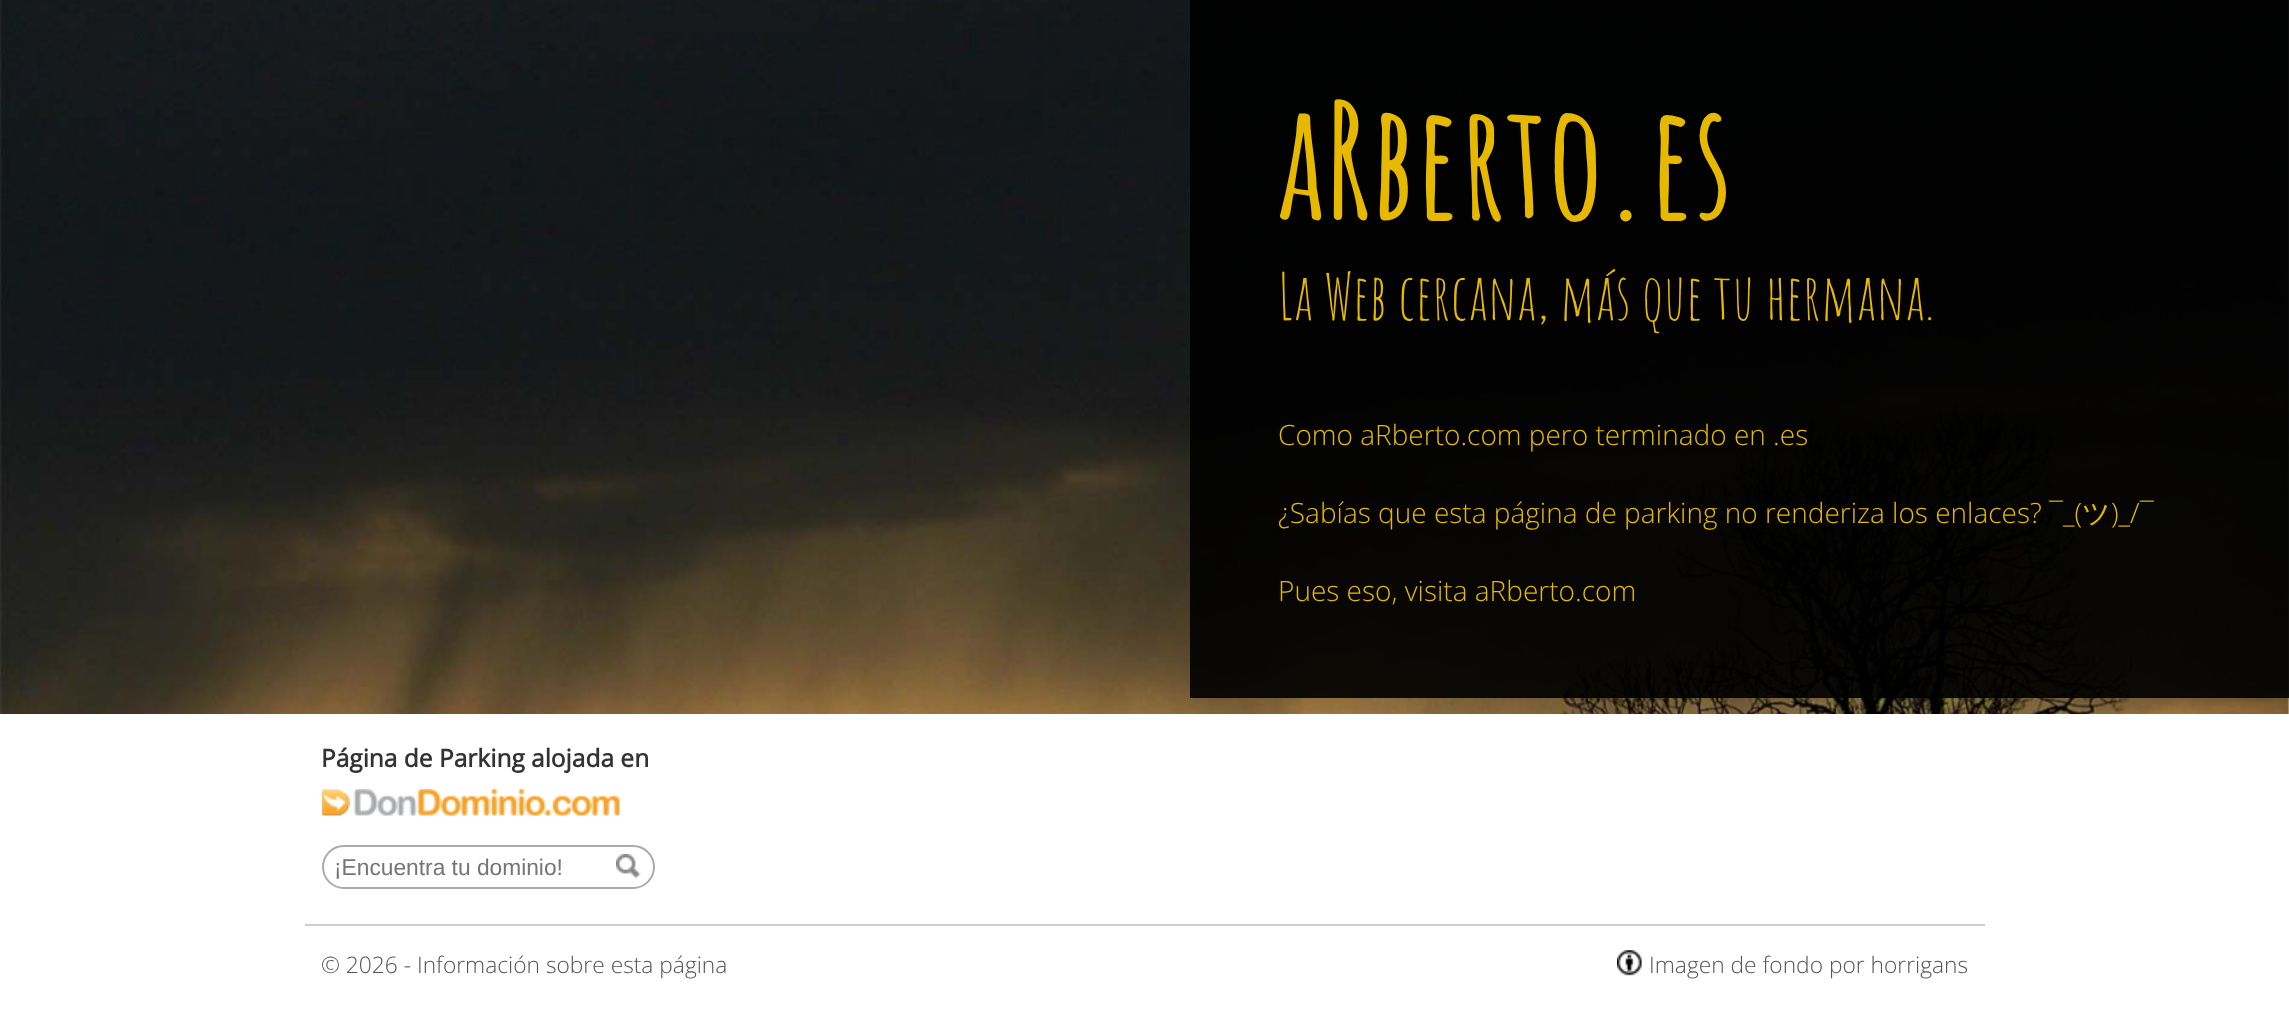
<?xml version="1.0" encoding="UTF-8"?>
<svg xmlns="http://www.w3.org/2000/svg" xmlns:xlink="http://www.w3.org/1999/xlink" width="2289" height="1036">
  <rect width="100%" height="100%" fill="#ffffff" />
  <image x="0" y="0" width="2289" height="714" xlink:href="image1.png" />
  <rect x="1190" width="1099" height="698" fill="#000000" fill-opacity="0.9" />
  <rect x="305" y="924" width="1680" height="2" fill="#cbcbdb" />
  <image x="322" y="789" width="298" height="27" xlink:href="image2.png" />
  <rect x="323" y="846" width="331" height="42" rx="21" fill="none" stroke="#aaaaaa" stroke-width="2" />
  <image x="616" y="854" width="25" height="25" xlink:href="image3.png" />
  <image x="1617" y="950" width="25" height="26" xlink:href="image4.png" />
  <text x="1278" y="219" style="font-family: Amatic SC; font-size: 157.5px; font-weight: bold; fill: #e6b800">aRberto.es</text>
  <text x="1278" y="320" style="font-family: Amatic SC; font-size: 63px; fill: #e6b800">La Web cercana, más que tu hermana.</text>
  <text x="1278" y="445" style="font-family: Open Sans; font-size: 28px; font-weight: 300; fill: #e6b800">Como aRberto.com pero terminado en .es</text>
  <text x="1278" y="523" style="font-family: Open Sans; font-size: 28px; font-weight: 300; fill: #e6b800">¿Sabías que esta página de parking no renderiza los enlaces? ¯_(</text>
  <text x="2082" y="523" style="font-family: WenQuanYi Zen Hei; font-size: 28px; font-weight: 500; fill: #e6b800">ツ</text>
  <text x="2111" y="523" style="font-family: Open Sans; font-size: 28px; font-weight: 300; fill: #e6b800">)_/¯</text>
  <text x="1278" y="601" style="font-family: Open Sans; font-size: 28px; font-weight: 300; fill: #e6b800">Pues eso, visita aRberto.com</text>
  <text x="321" y="767" style="font-family: Open Sans; font-size: 24.5px; font-weight: bold; fill: #333333">Página de Parking alojada en</text>
  <text x="334" y="875" style="font-family: Liberation Sans; font-size: 22.75px; fill: #757575">¡Encuentra tu dominio!</text>
  <text x="321" y="973" style="font-family: Open Sans; font-size: 22.75px; font-weight: 300; fill: #555555">© 2026 - Información sobre esta página</text>
  <text x="1649" y="973" style="font-family: Open Sans; font-size: 22.75px; font-weight: 300; fill: #555555">Imagen de fondo por horrigans</text>
</svg>
